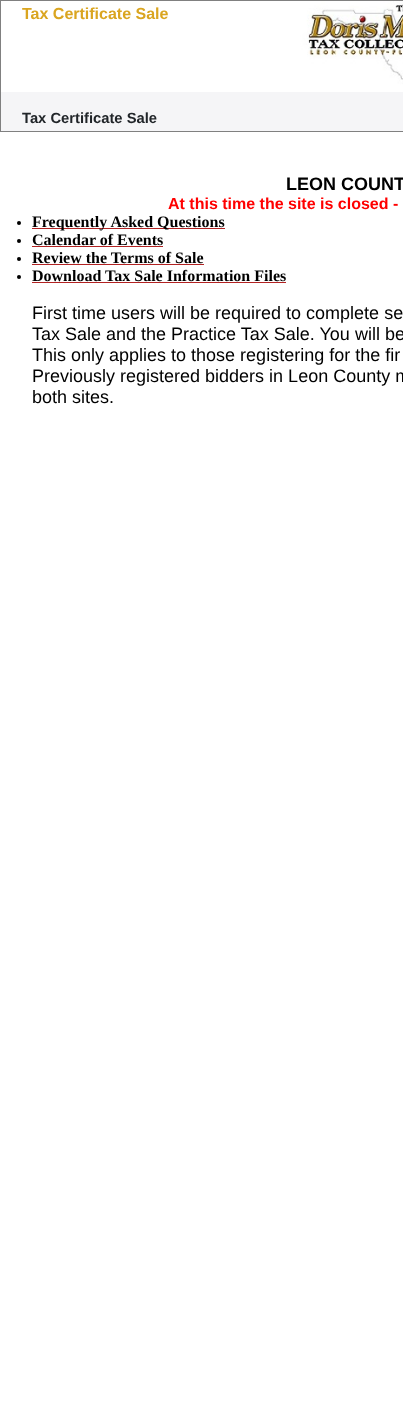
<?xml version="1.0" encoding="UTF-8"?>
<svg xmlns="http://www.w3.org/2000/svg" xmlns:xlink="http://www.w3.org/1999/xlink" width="403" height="1407">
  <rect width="100%" height="100%" fill="#ffffff" />
  <rect x="1" y="92" width="402" height="39" fill="#f5f5f7" />
  <rect width="403" height="1" fill="#808080" />
  <rect y="131" width="403" height="1" fill="#808080" />
  <rect width="1" height="132" fill="#808080" />
  <image x="1" y="1" width="402" height="91" xlink:href="image1.png" />
  <circle cx="19" cy="223" r="2" fill="#000000" />
  <rect x="32" y="228" width="193" height="1" fill="#b22222" />
  <circle cx="19" cy="241" r="2" fill="#000000" />
  <rect x="32" y="246" width="131" height="1" fill="#b22222" />
  <circle cx="19" cy="259" r="2" fill="#000000" />
  <rect x="32" y="264" width="172" height="1" fill="#b22222" />
  <circle cx="19" cy="277" r="2" fill="#000000" />
  <rect x="32" y="282" width="254" height="1" fill="#b22222" />
  <text x="22" y="19" style="font-family: Liberation Sans; font-size: 16px; font-weight: bold; fill: #daa520">Tax Certificate Sale</text>
  <text x="22" y="123" style="font-family: Liberation Sans; font-size: 14.75px; font-weight: bold; fill: #212529">Tax Certificate Sale</text>
  <text x="286" y="190" style="font-family: Liberation Sans; font-size: 18px; font-weight: bold; fill: #000000">LEON COUNT</text>
  <text x="168" y="209" style="font-family: Liberation Sans; font-size: 16px; font-weight: bold; fill: #ff0000">At this time the site is closed -</text>
  <text x="32" y="227" style="font-family: Liberation Serif; font-size: 16px; font-weight: bold; fill: #000000">Frequently Asked Questions</text>
  <text x="32" y="245" style="font-family: Liberation Serif; font-size: 16px; font-weight: bold; fill: #000000">Calendar of Events</text>
  <text x="32" y="263" style="font-family: Liberation Serif; font-size: 16px; font-weight: bold; fill: #000000">Review the Terms of Sale</text>
  <text x="32" y="281" style="font-family: Liberation Serif; font-size: 16px; font-weight: bold; fill: #000000">Download Tax Sale Information Files</text>
  <text x="32" y="319" style="font-family: Liberation Sans; font-size: 18px; fill: #000000">First time users will be required to complete se</text>
  <text x="32" y="340" style="font-family: Liberation Sans; font-size: 18px; fill: #000000">Tax Sale and the Practice Tax Sale. You will be</text>
  <text x="32" y="361" style="font-family: Liberation Sans; font-size: 18px; fill: #000000">This only applies to those registering for the fir</text>
  <text x="32" y="382" style="font-family: Liberation Sans; font-size: 18px; fill: #000000">Previously registered bidders in Leon County m</text>
  <text x="32" y="403" style="font-family: Liberation Sans; font-size: 18px; fill: #000000">both sites.</text>
</svg>
